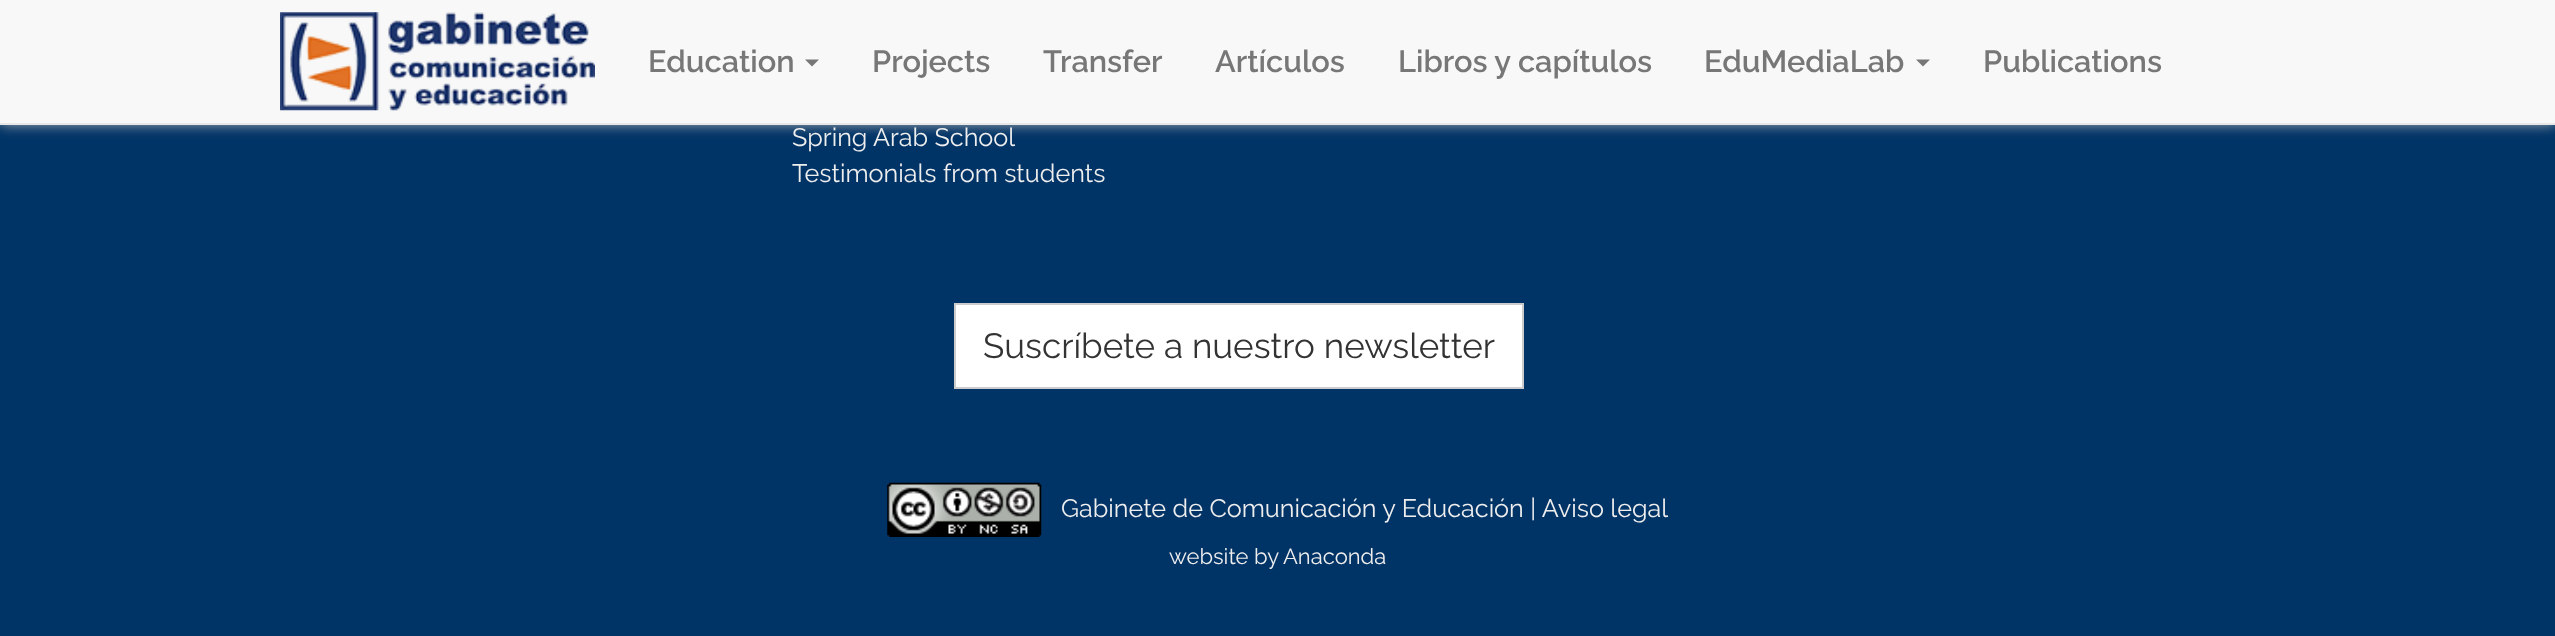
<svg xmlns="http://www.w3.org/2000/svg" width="2555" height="636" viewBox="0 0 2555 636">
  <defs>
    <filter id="blur1" x="-50%" y="-200%" width="200%" height="500%"><feGaussianBlur stdDeviation="7"/></filter>
  </defs>
  <rect width="100%" height="100%" fill="#003366"/>
  <rect x="0" y="0" width="2555" height="124" fill="#bbbbbb" filter="url(#blur1)"/>
  <rect x="0" y="0" width="2555" height="123" fill="#f8f8f8"/>
  <rect x="0" y="123" width="2555" height="2" fill="#e7e7e7"/>
  <image x="280" y="12" width="315" height="99" href="img1.png"/>
  <text x="648" y="72" font-family="Raleway" font-size="30.75" font-weight="600" fill="#777777">Education</text>
  <path d="M805 59.5H819L812 66.5Z" fill="#777777"/>
  <text x="872" y="72" font-family="Raleway" font-size="30.75" font-weight="600" fill="#777777">Projects</text>
  <text x="1043" y="72" font-family="Raleway" font-size="30.75" font-weight="600" fill="#777777">Transfer</text>
  <text x="1215" y="72" font-family="Raleway" font-size="30.75" font-weight="600" fill="#777777">Artículos</text>
  <text x="1398" y="72" font-family="Raleway" font-size="30.75" font-weight="600" fill="#777777">Libros y capítulos</text>
  <text x="1704" y="72" font-family="Raleway" font-size="30.75" font-weight="600" fill="#777777">EduMediaLab</text>
  <path d="M1916 59.5H1930L1923 66.5Z" fill="#777777"/>
  <text x="1983" y="72" font-family="Raleway" font-size="30.75" font-weight="600" fill="#777777">Publications</text>
  <text x="792" y="146" font-family="Raleway" font-size="25.2" fill="#eeeeee">Spring Arab School</text>
  <text x="792" y="182" font-family="Raleway" font-size="25.2" fill="#eeeeee">Testimonials from students</text>
  <rect x="955" y="304" width="568" height="84" fill="#ffffff" stroke="#cccccc" stroke-width="2"/>
  <text x="983" y="358" font-family="Raleway" font-size="35" fill="#333333">Suscríbete a nuestro newsletter</text>
  <image x="887" y="482" width="155" height="55" href="img2.png"/>
  <text x="1061" y="517" font-family="Raleway" font-size="25.2" fill="#eeeeee">Gabinete de Comunicación y Educación | Aviso legal</text>
  <text x="1169" y="564" font-family="Raleway" font-size="22" fill="#eeeeee">website by</text>
  <text x="1283" y="564" font-family="Raleway" font-size="22" fill="#eeeeee">Anaconda</text>
</svg>
